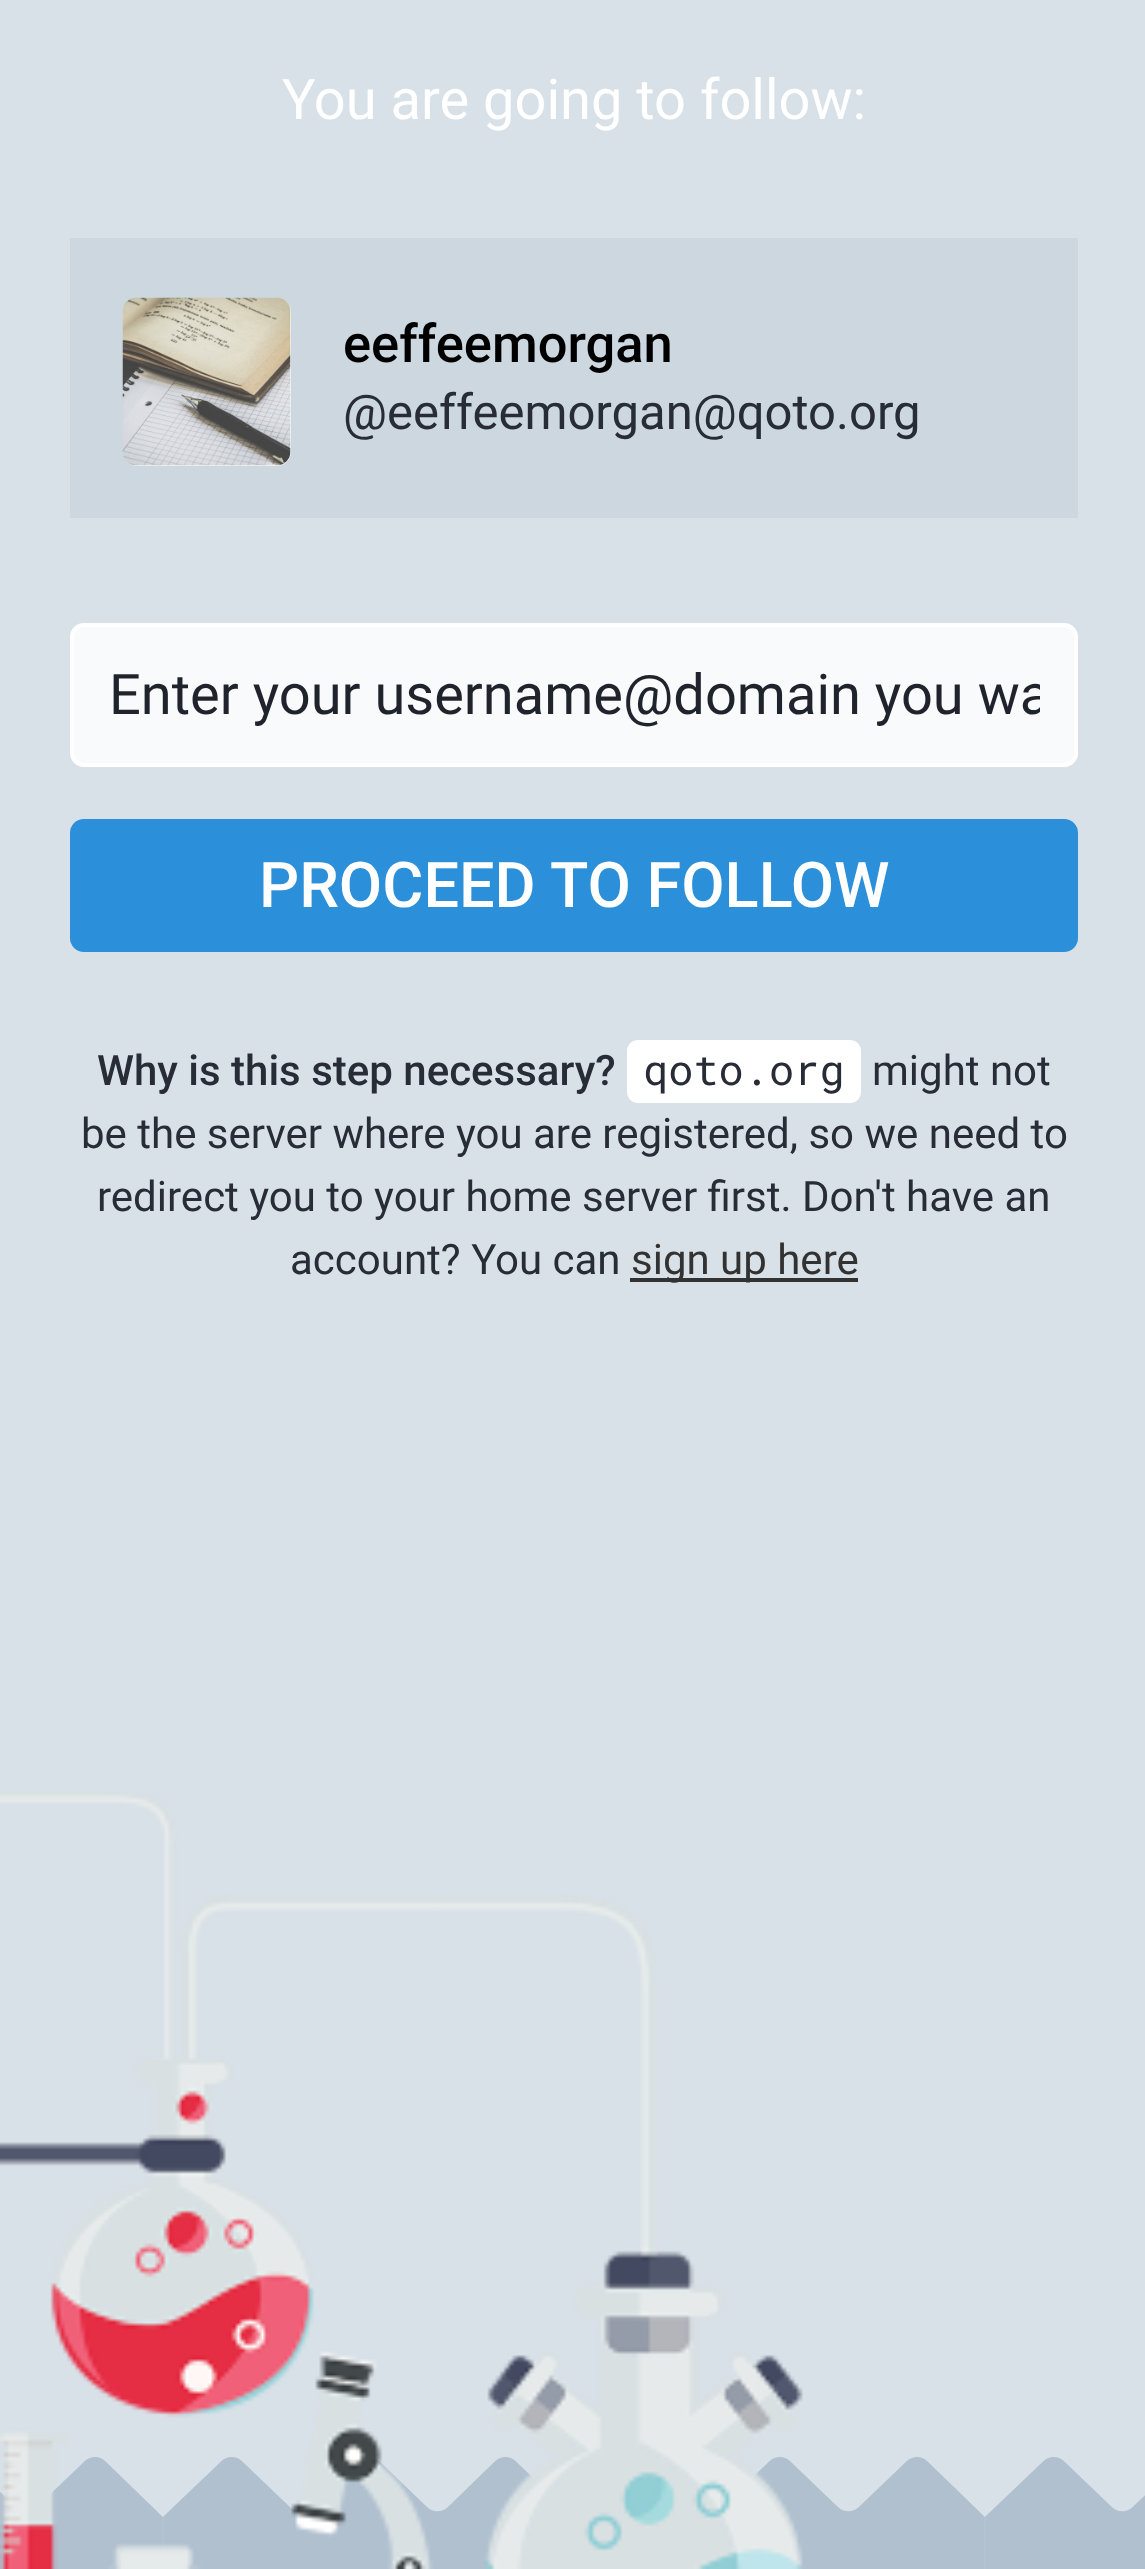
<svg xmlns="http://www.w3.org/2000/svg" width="1145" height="2569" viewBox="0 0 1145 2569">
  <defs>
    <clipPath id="clip1"><rect x="109" y="662" width="931" height="66"/></clipPath>
  </defs>
  <rect width="100%" height="100%" fill="#d9e1e8"/>
  <image x="0" y="2457" width="1145" height="112" href="img1.png"/>
  <text x="282" y="119" font-family="Roboto" font-size="56" fill="#ffffff">You are going to follow:</text>
  <rect x="70" y="238" width="1008" height="280" fill="#ccd7e0"/>
  <rect x="123" y="298" width="168" height="168" rx="14" fill="#f2f5f7"/>
  <image x="122" y="297" width="169" height="169" href="img2.png"/>
  <text x="343" y="362" font-family="Roboto" font-size="52.5" font-weight="500" fill="#000000">eeffeemorgan</text>
  <text x="343" y="429" font-family="Roboto" font-size="49" fill="#282c37">@eeffeemorgan@qoto.org</text>
  <rect x="72" y="625" width="1004" height="140" rx="12" fill="#f9fafb" stroke="#ffffff" stroke-width="4"/>
  <g clip-path="url(#clip1)">
    <text x="109" y="714" font-family="Roboto" font-size="56" fill="#1f232b">Enter your username@domain you wa</text>
  </g>
  <rect x="70" y="819" width="1008" height="133" rx="14" fill="#2b90d9"/>
  <text x="259" y="907" font-family="Roboto" font-size="63" font-weight="500" fill="#ffffff">PROCEED TO FOLLOW</text>
  <text x="97" y="1085" font-family="Roboto" font-size="42" font-weight="500" fill="#282c37">Why is this step necessary?</text>
  <rect x="627" y="1040" width="234" height="63" rx="11" fill="#ffffff"/>
  <text x="643" y="1085" font-family="Roboto Mono" font-size="42" fill="#282c37">qoto.org</text>
  <text x="872" y="1085" font-family="Roboto" font-size="42" fill="#282c37">might not</text>
  <text x="81" y="1148" font-family="Roboto" font-size="42" fill="#282c37">be the server where you are registered, so we need to</text>
  <text x="97" y="1211" font-family="Roboto" font-size="42" fill="#282c37">redirect you to your home server first. Don't have an</text>
  <text x="290" y="1274" font-family="Roboto" font-size="42" fill="#282c37">account? You can</text>
  <rect x="630" y="1278" width="228" height="4" fill="#323232"/>
  <text x="631" y="1274" font-family="Roboto" font-size="42" fill="#323232">sign up here</text>
  <image x="0" y="1791" width="803" height="778" href="img3.png"/>
</svg>
